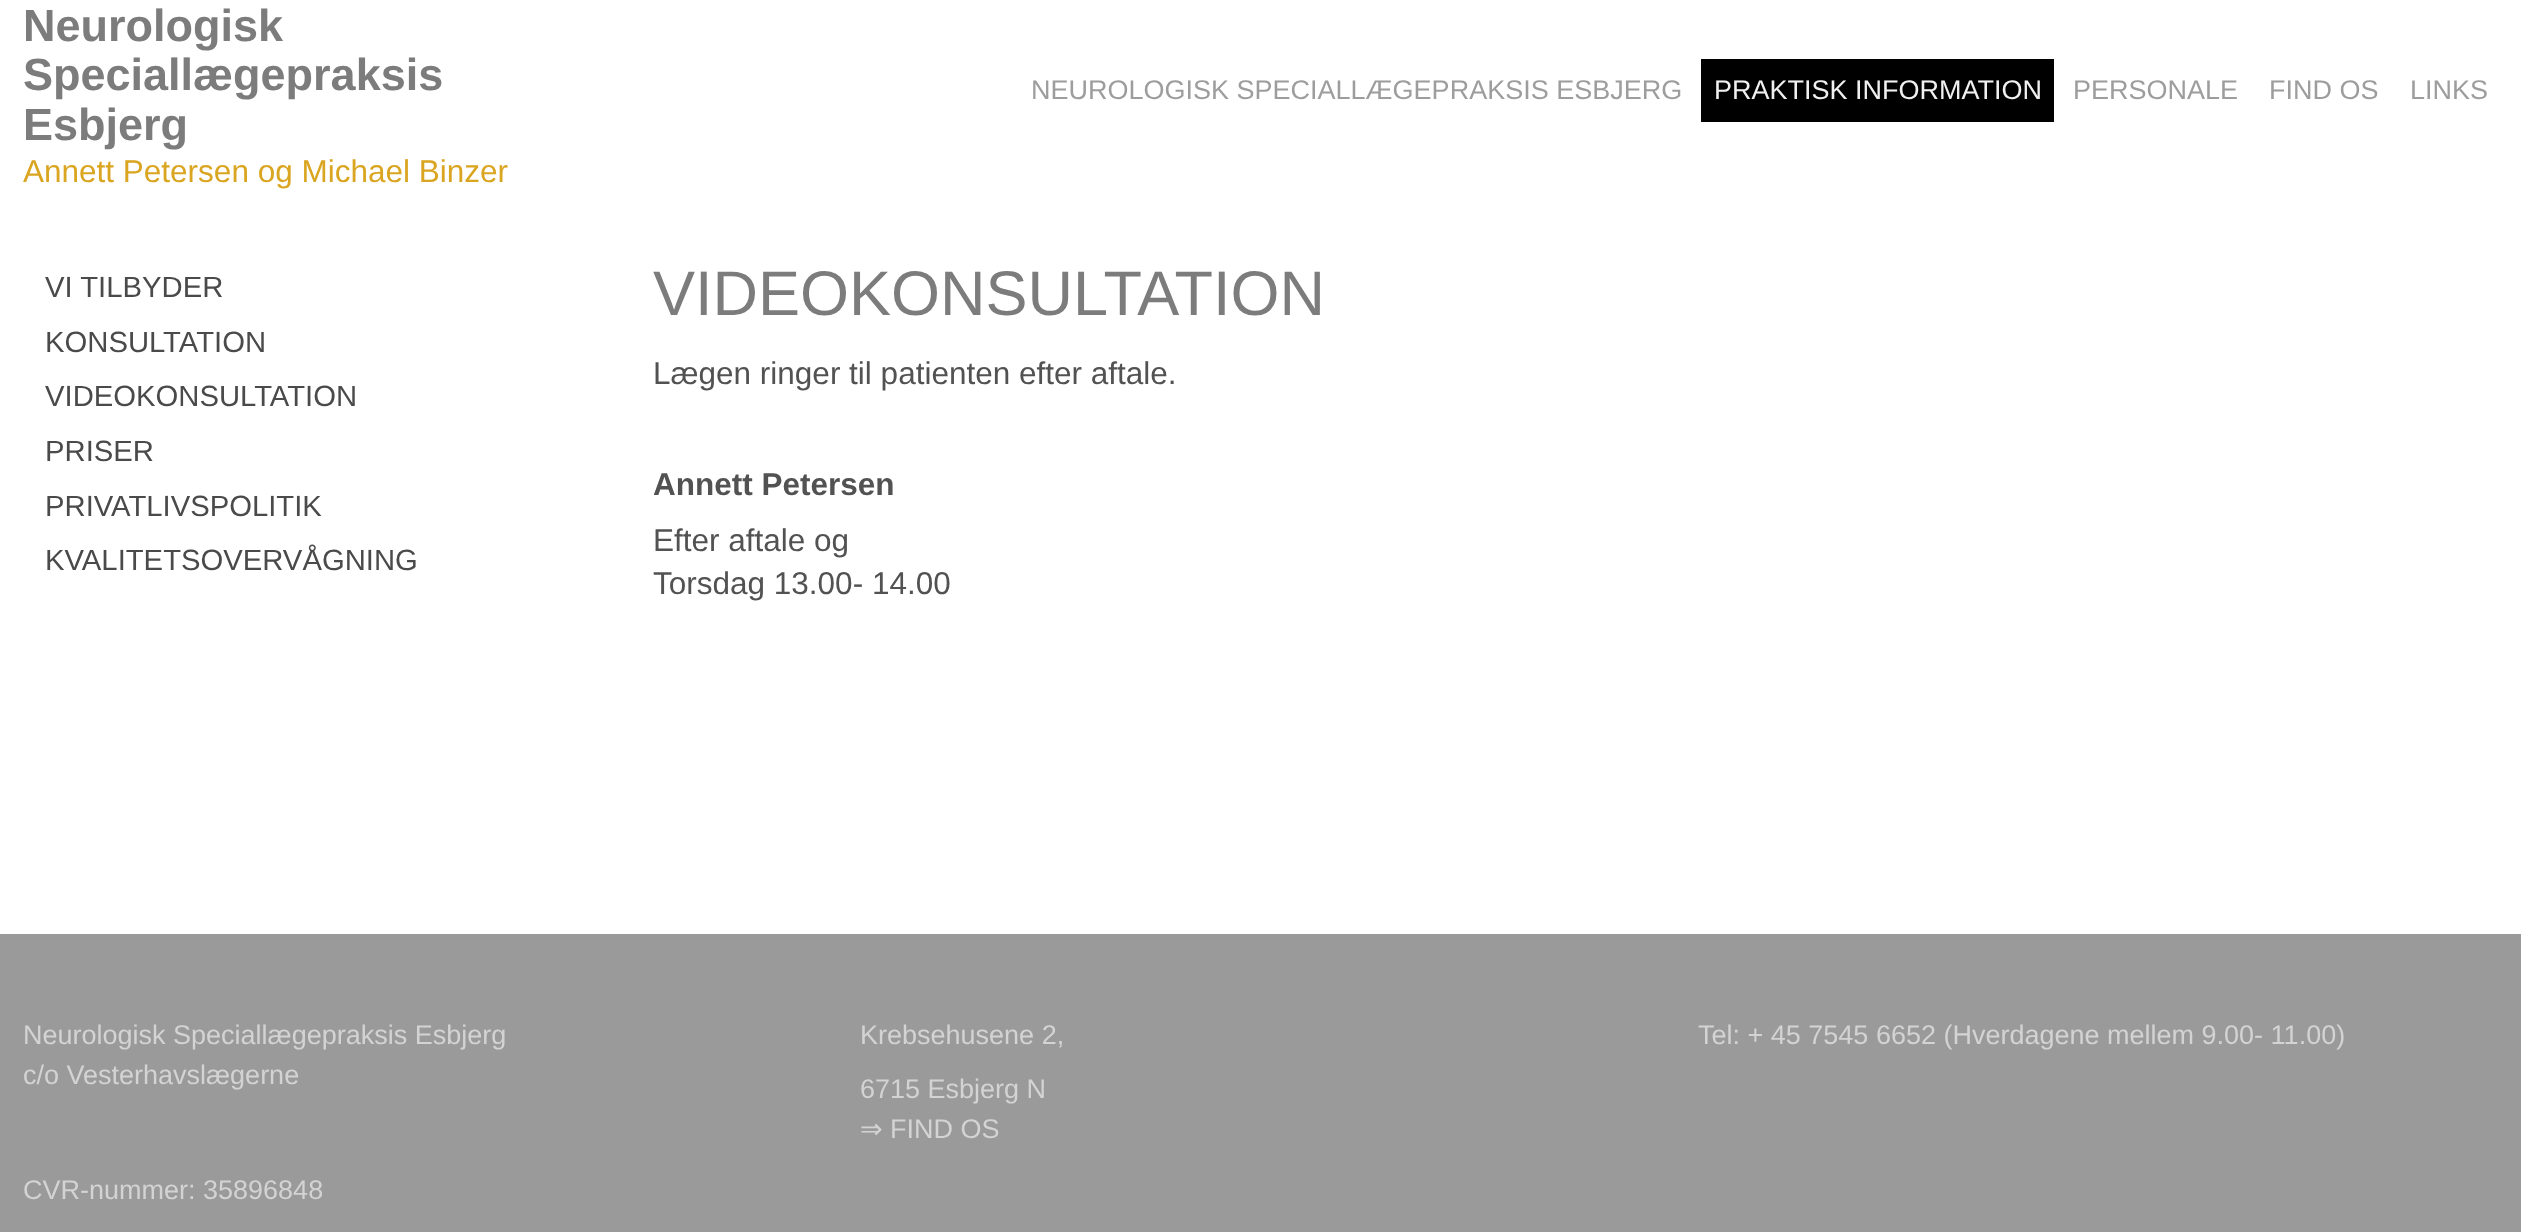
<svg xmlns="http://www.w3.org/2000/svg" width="2521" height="1232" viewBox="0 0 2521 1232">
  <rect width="100%" height="100%" fill="#ffffff"/>
  <text x="23" y="41" font-family="Liberation Sans" font-size="45" font-weight="bold" fill="#7c7c7c">Neurologisk</text>
  <text x="23" y="90" font-family="Liberation Sans" font-size="45" font-weight="bold" fill="#7c7c7c">Speciallægepraksis</text>
  <text x="23" y="140" font-family="Liberation Sans" font-size="45" font-weight="bold" fill="#7c7c7c">Esbjerg</text>
  <text x="23" y="182" font-family="Liberation Sans" font-size="31.5" fill="#daa520">Annett Petersen og Michael Binzer</text>
  <text x="1031" y="99" font-family="Liberation Sans" font-size="27" fill="#9d9d9d">NEUROLOGISK SPECIALLÆGEPRAKSIS ESBJERG</text>
  <rect x="1701" y="59" width="353" height="63" fill="#000000"/>
  <text x="1714" y="99" font-family="Liberation Sans" font-size="27" fill="#f0f0f0">PRAKTISK INFORMATION</text>
  <text x="2073" y="99" font-family="Liberation Sans" font-size="27" fill="#9d9d9d">PERSONALE</text>
  <text x="2269" y="99" font-family="Liberation Sans" font-size="27" fill="#9d9d9d">FIND OS</text>
  <text x="2410" y="99" font-family="Liberation Sans" font-size="27" fill="#9d9d9d">LINKS</text>
  <text x="45" y="297" font-family="Liberation Sans" font-size="29.25" fill="#4a4a4a">VI TILBYDER</text>
  <text x="45" y="352" font-family="Liberation Sans" font-size="29.25" fill="#4a4a4a">KONSULTATION</text>
  <text x="45" y="406" font-family="Liberation Sans" font-size="29.25" fill="#4a4a4a">VIDEOKONSULTATION</text>
  <text x="45" y="461" font-family="Liberation Sans" font-size="29.25" fill="#4a4a4a">PRISER</text>
  <text x="45" y="516" font-family="Liberation Sans" font-size="29.25" fill="#4a4a4a">PRIVATLIVSPOLITIK</text>
  <text x="45" y="570" font-family="Liberation Sans" font-size="29.25" fill="#4a4a4a">KVALITETSOVERVÅGNING</text>
  <text x="653" y="315" font-family="Liberation Sans" font-size="63" fill="#7c7c7c">VIDEOKONSULTATION</text>
  <text x="653" y="384" font-family="Liberation Sans" font-size="31.5" fill="#525252">Lægen ringer til patienten efter aftale.</text>
  <text x="653" y="495" font-family="Liberation Sans" font-size="31.5" font-weight="bold" fill="#525252">Annett Petersen</text>
  <text x="653" y="551" font-family="Liberation Sans" font-size="31.5" fill="#525252">Efter aftale og</text>
  <text x="653" y="594" font-family="Liberation Sans" font-size="31.5" fill="#525252">Torsdag 13.00- 14.00</text>
  <rect x="0" y="934" width="2521" height="298" fill="#9a9a9a"/>
  <text x="23" y="1044" font-family="Liberation Sans" font-size="27" fill="#d3d3d3">Neurologisk Speciallægepraksis Esbjerg</text>
  <text x="23" y="1084" font-family="Liberation Sans" font-size="27" fill="#d3d3d3">c/o Vesterhavslægerne</text>
  <text x="860" y="1044" font-family="Liberation Sans" font-size="27" fill="#d3d3d3">Krebsehusene 2,</text>
  <text x="860" y="1098" font-family="Liberation Sans" font-size="27" fill="#d3d3d3">6715 Esbjerg N</text>
  <text x="860" y="1138" font-family="DejaVu Sans" font-size="27" fill="#d3d3d3">⇒</text>
  <text x="890" y="1138" font-family="Liberation Sans" font-size="27" fill="#d3d3d3">FIND OS</text>
  <text x="1698" y="1044" font-family="Liberation Sans" font-size="27" fill="#d3d3d3">Tel: + 45 7545 6652 (Hverdagene mellem 9.00- 11.00)</text>
  <text x="23" y="1199" font-family="Liberation Sans" font-size="27" fill="#d3d3d3">CVR-nummer: 35896848</text>
</svg>
